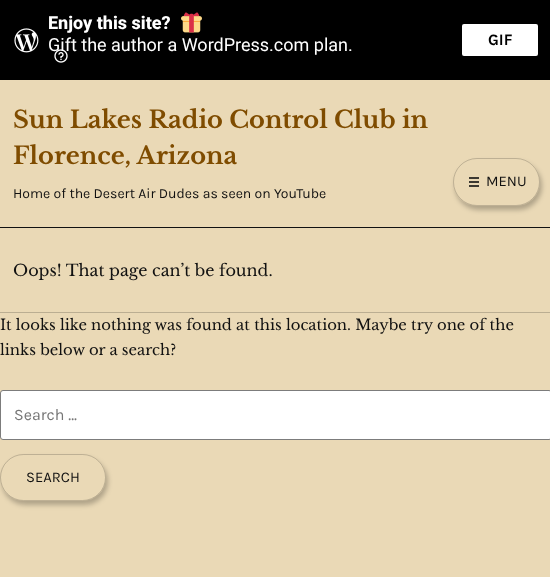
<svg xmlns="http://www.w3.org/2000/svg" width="550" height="577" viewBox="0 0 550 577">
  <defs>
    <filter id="blur1" x="-50%" y="-200%" width="200%" height="500%"><feGaussianBlur stdDeviation="2.5"/></filter>
  </defs>
  <rect width="100%" height="100%" fill="#ead9b6"/>
  <rect x="0" y="0" width="550" height="80" fill="#000000"/>
  <image x="14" y="28" width="25" height="25" href="img1.png"/>
  <text x="48" y="29" font-family="Roboto" font-size="18" font-weight="800" fill="#ffffff">Enjoy this site?</text>
  <image x="181" y="12" width="21" height="21" href="img2.png"/>
  <text x="48" y="51" font-family="Roboto" font-size="18" fill="#ffffff">Gift the author a WordPress.com plan.</text>
  <image x="54" y="49" width="14" height="14" href="img3.png"/>
  <rect x="462" y="24" width="76" height="32" rx="2" fill="#ffffff"/>
  <text x="488" y="45" font-family="Karla" font-size="16" font-weight="bold" fill="#000000">GIF</text>
  <text x="13" y="128" font-family="Libre Baskerville" font-size="24" font-weight="bold" fill="#7f4c00">Sun Lakes Radio Control Club in</text>
  <text x="13" y="164" font-family="Libre Baskerville" font-size="24" font-weight="bold" fill="#7f4c00">Florence, Arizona</text>
  <text x="13" y="198" font-family="Karla" font-size="14" fill="#111111">Home of the Desert Air Dudes as seen on YouTube</text>
  <rect x="455" y="162" width="87" height="48" rx="24" fill="#000000" fill-opacity="0.25" filter="url(#blur1)"/>
  <rect x="453" y="158" width="87" height="48" rx="24" fill="#ead9b6"/>
  <rect x="453.5" y="158.5" width="86" height="47" rx="23.5" fill="none" stroke="#111111" stroke-opacity="0.2"/>
  <rect x="469" y="177" width="10" height="2" fill="#3c3932"/>
  <rect x="469" y="181" width="10" height="2" fill="#3c3932"/>
  <rect x="469" y="185" width="10" height="2" fill="#3c3932"/>
  <text x="486" y="186" font-family="Karla" font-size="14.8" fill="#111111">MENU</text>
  <rect x="0" y="227" width="550" height="1" fill="#111111"/>
  <rect x="0" y="312" width="550" height="1" fill="#bbae92"/>
  <text x="13" y="276" font-family="Libre Baskerville" font-size="16" fill="#111111">Oops! That page can’t be found.</text>
  <text x="0" y="330" font-family="Libre Baskerville" font-size="14.8" fill="#111111">It looks like nothing was found at this location. Maybe try one of the</text>
  <text x="0" y="355" font-family="Libre Baskerville" font-size="14.8" fill="#111111">links below or a search?</text>
  <rect x="0.5" y="390.5" width="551" height="49" rx="2.5" fill="#ffffff" stroke="#7c7c7c"/>
  <text x="14" y="420" font-family="Karla" font-size="16" fill="#757575">Search …</text>
  <rect x="2" y="458" width="106" height="47" rx="23.5" fill="#000000" fill-opacity="0.25" filter="url(#blur1)"/>
  <rect x="0" y="454" width="106" height="47" rx="23.5" fill="#ead9b6"/>
  <rect x="0.5" y="454.5" width="105" height="46" rx="23" fill="none" stroke="#111111" stroke-opacity="0.2"/>
  <text x="26" y="482" font-family="Karla" font-size="14.8" fill="#111111">SEARCH</text>
</svg>
